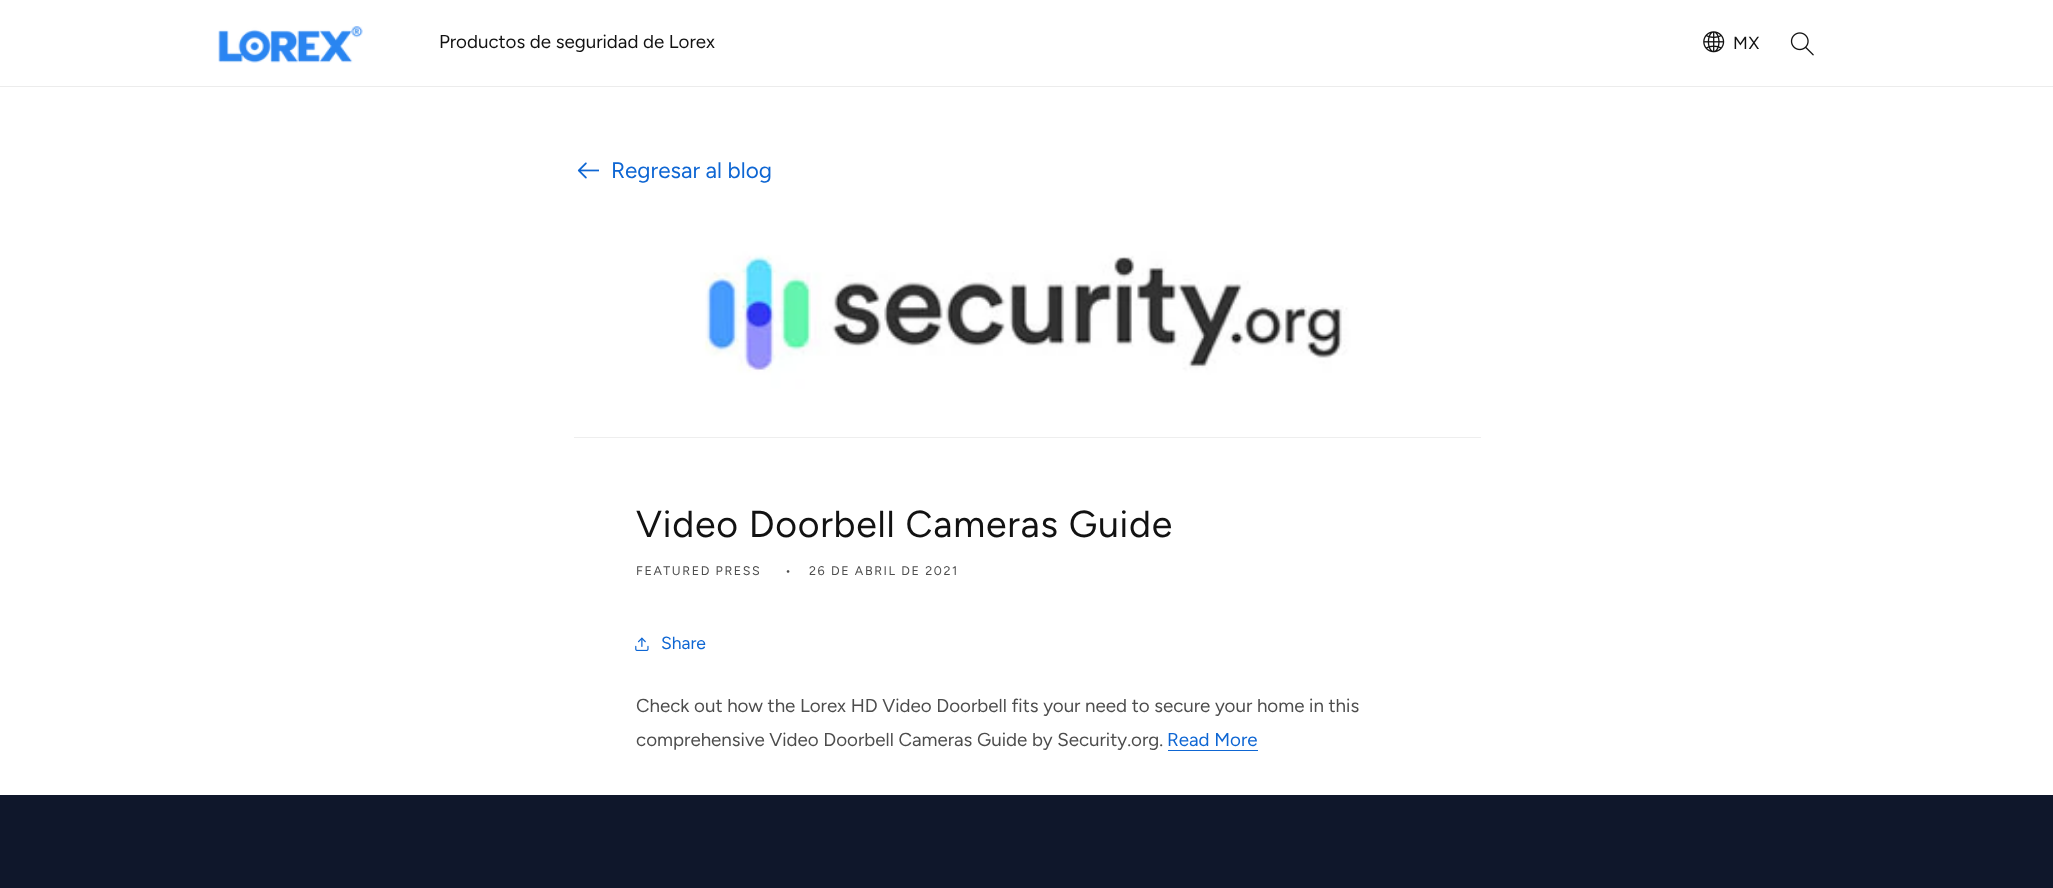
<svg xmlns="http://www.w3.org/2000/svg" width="2053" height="888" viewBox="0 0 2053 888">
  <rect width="100%" height="100%" fill="#ffffff"/>
  <rect x="0" y="86" width="2053" height="1" fill="#ececec"/>
  <image x="218" y="26" width="145" height="37" href="img1.png"/>
  <text x="439" y="48" font-family="Figtree" font-size="18.75" fill="#121212">Productos de seguridad de Lorex</text>
  <image x="1703" y="31" width="22" height="22" href="img2.png"/>
  <text x="1733" y="49" font-family="Figtree" font-size="17.5" letter-spacing="0.75" fill="#121212">MX</text>
  <image x="1790" y="32" width="24" height="24" href="img3.png"/>
  <image x="577" y="162" width="22" height="17" href="img4.png"/>
  <text x="611" y="178" font-family="Figtree" font-size="22.5" fill="#0e66d3">Regresar al blog</text>
  <rect x="574" y="437" width="907" height="1" fill="#e8e8e8"/>
  <image x="574" y="190" width="907" height="248" href="img5.png"/>
  <text x="636" y="537" font-family="Figtree" font-size="37.5" letter-spacing="0.75" fill="#121212">Video Doorbell Cameras Guide</text>
  <text x="636" y="575" font-family="Figtree" font-size="12.5" letter-spacing="1.6" fill="#4d4d4d">FEATURED PRESS</text>
  <text x="785" y="575" font-family="Figtree" font-size="12.5" letter-spacing="1.6" fill="#4d4d4d">•</text>
  <text x="809" y="575" font-family="Figtree" font-size="12.5" letter-spacing="1.6" fill="#4d4d4d">26 DE ABRIL DE 2021</text>
  <image x="635" y="637" width="14" height="14" href="img6.png"/>
  <text x="661" y="649" font-family="Figtree" font-size="17.5" fill="#0e66d3">Share</text>
  <text x="636" y="712" font-family="Figtree" font-size="18.75" fill="#4d4d4d">Check out how the Lorex HD Video Doorbell fits your need to secure your home in this</text>
  <text x="636" y="746" font-family="Figtree" font-size="18.75" fill="#4d4d4d">comprehensive Video Doorbell Cameras Guide by Security.org.</text>
  <text x="1167" y="746" font-family="Figtree" font-size="18.75" fill="#0e66d3">Read More</text>
  <rect x="1168" y="750" width="90" height="1" fill="#0e66d3"/>
  <rect x="0" y="795" width="2053" height="93" fill="#0f172b"/>
</svg>
